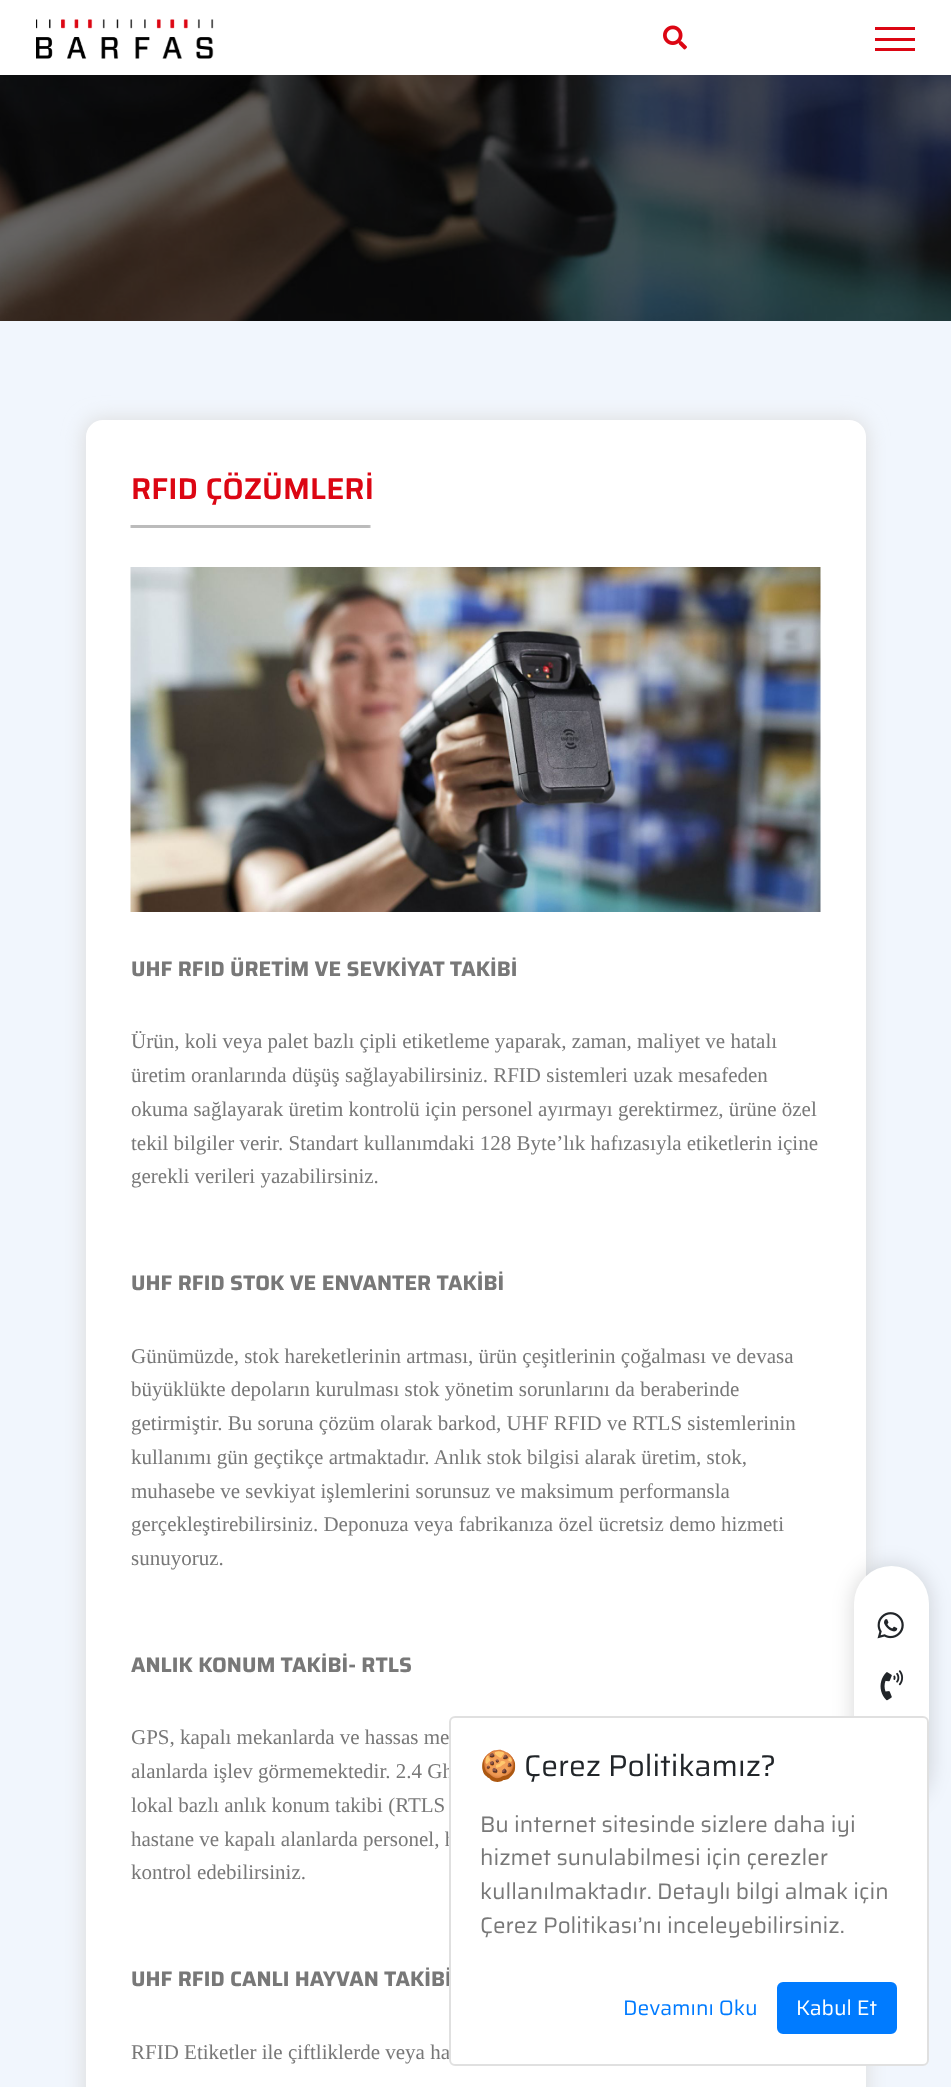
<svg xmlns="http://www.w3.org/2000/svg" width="951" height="2087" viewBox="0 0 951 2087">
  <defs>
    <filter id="blur1" x="-50%" y="-200%" width="200%" height="500%"><feGaussianBlur stdDeviation="10"/></filter>
    <filter id="blur2" x="-50%" y="-200%" width="200%" height="500%"><feGaussianBlur stdDeviation="10.5"/></filter>
  </defs>
  <rect width="100%" height="100%" fill="#ffffff"/>
  <image x="36" y="19" width="178" height="40" href="img1.png"/>
  <image x="663" y="25" width="24" height="25" href="img2.png"/>
  <rect x="875" y="27" width="40" height="3" fill="#dc0613"/>
  <rect x="875" y="38" width="40" height="3" fill="#dc0613"/>
  <rect x="875" y="48" width="40" height="3" fill="#dc0613"/>
  <image x="0" y="75" width="951" height="246" href="img3.png"/>
  <rect x="0" y="321" width="951" height="1766" fill="#f1f6fd"/>
  <rect x="84" y="419" width="783" height="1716" rx="18" fill="#dddddd" filter="url(#blur1)"/>
  <rect x="86" y="420" width="780" height="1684" rx="17" fill="#ffffff"/>
  <image x="130" y="525" width="241" height="3" href="img4.png"/>
  <text x="131" y="499" font-family="Saira" font-size="30" font-weight="600" fill="#dc0613">RFID ÇÖZÜMLERİ</text>
  <image x="130" y="567" width="691" height="345" href="img5.png"/>
  <text x="131" y="976" font-family="Saira" font-size="21" font-weight="bold" fill="#787878">UHF RFID ÜRETİM VE SEVKİYAT TAKİBİ</text>
  <text x="131" y="1048" font-family="Liberation Serif" font-size="21" fill="#787878">Ürün, koli veya palet bazlı çipli etiketleme yaparak, zaman, maliyet ve hatalı</text>
  <text x="131" y="1082" font-family="Liberation Serif" font-size="21" fill="#787878">üretim oranlarında düşüş sağlayabilirsiniz. RFID sistemleri uzak mesafeden</text>
  <text x="131" y="1116" font-family="Liberation Serif" font-size="21" fill="#787878">okuma sağlayarak üretim kontrolü için personel ayırmayı gerektirmez, ürüne özel</text>
  <text x="131" y="1150" font-family="Liberation Serif" font-size="21" fill="#787878">tekil bilgiler verir. Standart kullanımdaki 128 Byte’lık hafızasıyla etiketlerin içine</text>
  <text x="131" y="1183" font-family="Liberation Serif" font-size="21" fill="#787878">gerekli verileri yazabilirsiniz.</text>
  <text x="131" y="1290" font-family="Saira" font-size="21" font-weight="bold" fill="#787878">UHF RFID STOK VE ENVANTER TAKİBİ</text>
  <text x="131" y="1363" font-family="Liberation Serif" font-size="21" fill="#787878">Günümüzde, stok hareketlerinin artması, ürün çeşitlerinin çoğalması ve devasa</text>
  <text x="131" y="1396" font-family="Liberation Serif" font-size="21" fill="#787878">büyüklükte depoların kurulması stok yönetim sorunlarını da beraberinde</text>
  <text x="131" y="1430" font-family="Liberation Serif" font-size="21" fill="#787878">getirmiştir. Bu soruna çözüm olarak barkod, UHF RFID ve RTLS sistemlerinin</text>
  <text x="131" y="1464" font-family="Liberation Serif" font-size="21" fill="#787878">kullanımı gün geçtikçe artmaktadır. Anlık stok bilgisi alarak üretim, stok,</text>
  <text x="131" y="1498" font-family="Liberation Serif" font-size="21" fill="#787878">muhasebe ve sevkiyat işlemlerini sorunsuz ve maksimum performansla</text>
  <text x="131" y="1531" font-family="Liberation Serif" font-size="21" fill="#787878">gerçekleştirebilirsiniz. Deponuza veya fabrikanıza özel ücretsiz demo hizmeti</text>
  <text x="131" y="1565" font-family="Liberation Serif" font-size="21" fill="#787878">sunuyoruz.</text>
  <text x="131" y="1672" font-family="Saira" font-size="21" font-weight="bold" fill="#787878">ANLIK KONUM TAKİBİ- RTLS</text>
  <text x="131" y="1744" font-family="Liberation Serif" font-size="21" fill="#787878">GPS, kapalı mekanlarda ve hassas me</text>
  <text x="131" y="1778" font-family="Liberation Serif" font-size="21" fill="#787878">alanlarda işlev görmemektedir. 2.4 Gh</text>
  <text x="131" y="1812" font-family="Liberation Serif" font-size="21" fill="#787878">lokal bazlı anlık konum takibi (RTLS</text>
  <text x="131" y="1846" font-family="Liberation Serif" font-size="21" fill="#787878">hastane ve kapalı alanlarda personel, h</text>
  <text x="131" y="1879" font-family="Liberation Serif" font-size="21" fill="#787878">kontrol edebilirsiniz.</text>
  <text x="131" y="1986" font-family="Saira" font-size="21" font-weight="bold" fill="#787878">UHF RFID CANLI HAYVAN TAKİBİ</text>
  <text x="131" y="2059" font-family="Liberation Serif" font-size="21" fill="#787878">RFID Etiketler ile çiftliklerde veya ha</text>
  <rect x="854" y="1566" width="75" height="240" rx="37.5" fill="#000000" fill-opacity="0.16" filter="url(#blur2)"/>
  <rect x="854" y="1566" width="75" height="240" rx="37.5" fill="#ffffff"/>
  <image x="877" y="1612" width="27" height="27" href="img6.png"/>
  <image x="880" y="1670" width="24" height="31" href="img7.png"/>
  <rect x="449" y="1716" width="480" height="350" rx="6" fill="#ffffff"/>
  <rect x="450" y="1717" width="478" height="348" rx="5" fill="none" stroke="#000000" stroke-opacity="0.12" stroke-width="2"/>
  <text x="480" y="1776" font-family="Noto Color Emoji" font-size="30" fill="#212529">🍪</text>
  <text x="524" y="1776" font-family="Saira" font-size="30" fill="#212529">Çerez Politikamız?</text>
  <text x="480" y="1832" font-family="Saira" font-size="22.5" fill="#787878">Bu internet sitesinde sizlere daha iyi</text>
  <text x="480" y="1865" font-family="Saira" font-size="22.5" fill="#787878">hizmet sunulabilmesi için çerezler</text>
  <text x="480" y="1899" font-family="Saira" font-size="22.5" fill="#787878">kullanılmaktadır. Detaylı bilgi almak için</text>
  <text x="480" y="1933" font-family="Saira" font-size="22.5" fill="#787878">Çerez Politikası’nı inceleyebilirsiniz.</text>
  <text x="623" y="2015" font-family="Saira" font-size="21" fill="#007bff">Devamını Oku</text>
  <rect x="778" y="1983" width="118" height="50" rx="5" fill="#007bff" stroke="#007bff" stroke-width="2"/>
  <text x="796" y="2015" font-family="Saira" font-size="21" fill="#ffffff">Kabul Et</text>
</svg>
